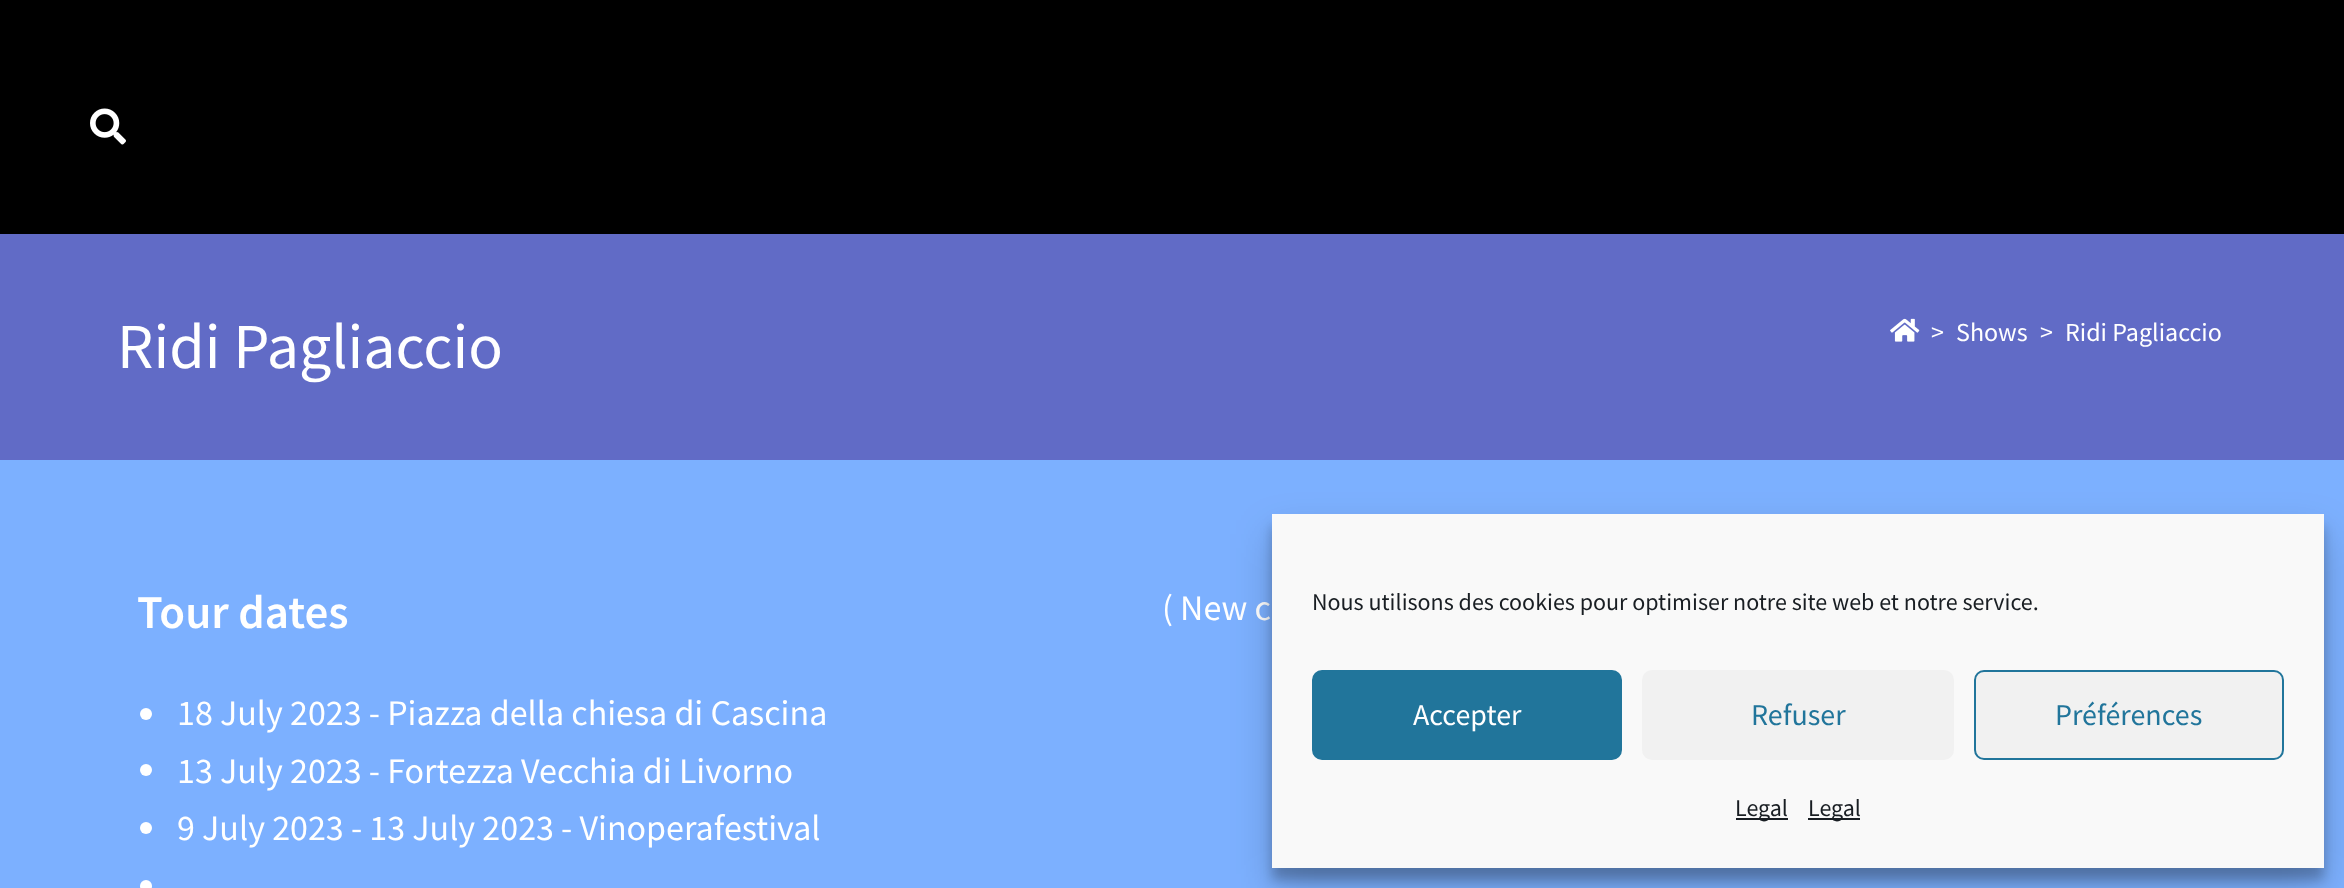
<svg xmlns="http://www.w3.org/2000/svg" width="2344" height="888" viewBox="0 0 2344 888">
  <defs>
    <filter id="blur1" x="-50%" y="-200%" width="200%" height="500%"><feGaussianBlur stdDeviation="6"/></filter>
    <filter id="blur2" x="-50%" y="-200%" width="200%" height="500%"><feGaussianBlur stdDeviation="20"/></filter>
  </defs>
  <rect width="100%" height="100%" fill="#000000"/>
  <image x="90" y="108" width="36" height="37" href="img1.png"/>
  <rect x="0" y="460" width="2344" height="428" fill="#7cb0ff"/>
  <rect x="0" y="234" width="2344" height="226" fill="#616bc6"/>
  <text x="117" y="368" font-family="Source Sans Pro" font-size="64" fill="#ffffff">Ridi Pagliaccio</text>
  <image x="1890" y="318" width="30" height="24" href="img2.png"/>
  <text x="1931" y="341" font-family="Source Sans Pro" font-size="26" fill="#ffffff">&gt;</text>
  <text x="1956" y="341" font-family="Source Sans Pro" font-size="26" fill="#ffffff">Shows</text>
  <text x="2040" y="341" font-family="Source Sans Pro" font-size="26" fill="#ffffff">&gt;</text>
  <text x="2065" y="341" font-family="Source Sans Pro" font-size="26" fill="#ffffff">Ridi Pagliaccio</text>
  <text x="137" y="628" font-family="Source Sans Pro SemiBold" font-size="47" font-weight="600" fill="#ffffff">Tour dates</text>
  <circle cx="146" cy="714" r="6" fill="#ffffff"/>
  <text x="177" y="725" font-family="Source Sans Pro" font-size="36" fill="#ffffff">18 July 2023 - Piazza della chiesa di Cascina</text>
  <circle cx="146" cy="770" r="6" fill="#ffffff"/>
  <text x="177" y="783" font-family="Source Sans Pro" font-size="36" fill="#ffffff">13 July 2023 - Fortezza Vecchia di Livorno</text>
  <circle cx="146" cy="828" r="6" fill="#ffffff"/>
  <text x="177" y="840" font-family="Source Sans Pro" font-size="36" fill="#ffffff">9 July 2023 - 13 July 2023 - Vinoperafestival</text>
  <circle cx="146" cy="886" r="6" fill="#ffffff"/>
  <text x="1162" y="620" font-family="Source Sans Pro" font-size="36" fill="#ffffff">( New c</text>
  <rect x="1272" y="526" width="1052" height="354" fill="#000000" fill-opacity="0.23" filter="url(#blur1)"/>
  <rect x="1272" y="534" width="1052" height="354" fill="#000000" fill-opacity="0.19" filter="url(#blur2)"/>
  <rect x="1272" y="514" width="1052" height="354" fill="#f9f9f9"/>
  <text x="1312" y="610" font-family="Source Sans Pro" font-size="24" fill="#191e23">Nous utilisons des cookies pour optimiser notre site web et notre service.</text>
  <rect x="1313" y="671" width="308" height="88" rx="9" fill="#21759b" stroke="#21759b" stroke-width="2"/>
  <text x="1413" y="725" font-family="Source Sans Pro" font-size="30" fill="#ffffff">Accepter</text>
  <rect x="1642" y="670" width="312" height="90" rx="10" fill="#f1f1f1"/>
  <text x="1751" y="725" font-family="Source Sans Pro" font-size="30" fill="#21759b">Refuser</text>
  <rect x="1975" y="671" width="308" height="88" rx="9" fill="#f1f1f1" stroke="#21759b" stroke-width="2"/>
  <text x="2055" y="725" font-family="Source Sans Pro" font-size="30" fill="#21759b">Préférences</text>
  <rect x="1736" y="818" width="52" height="2" fill="#191e23"/>
  <text x="1735" y="816" font-family="Source Sans Pro" font-size="24" fill="#191e23">Legal</text>
  <rect x="1808" y="818" width="52" height="2" fill="#191e23"/>
  <text x="1808" y="816" font-family="Source Sans Pro" font-size="24" fill="#191e23">Legal</text>
</svg>
